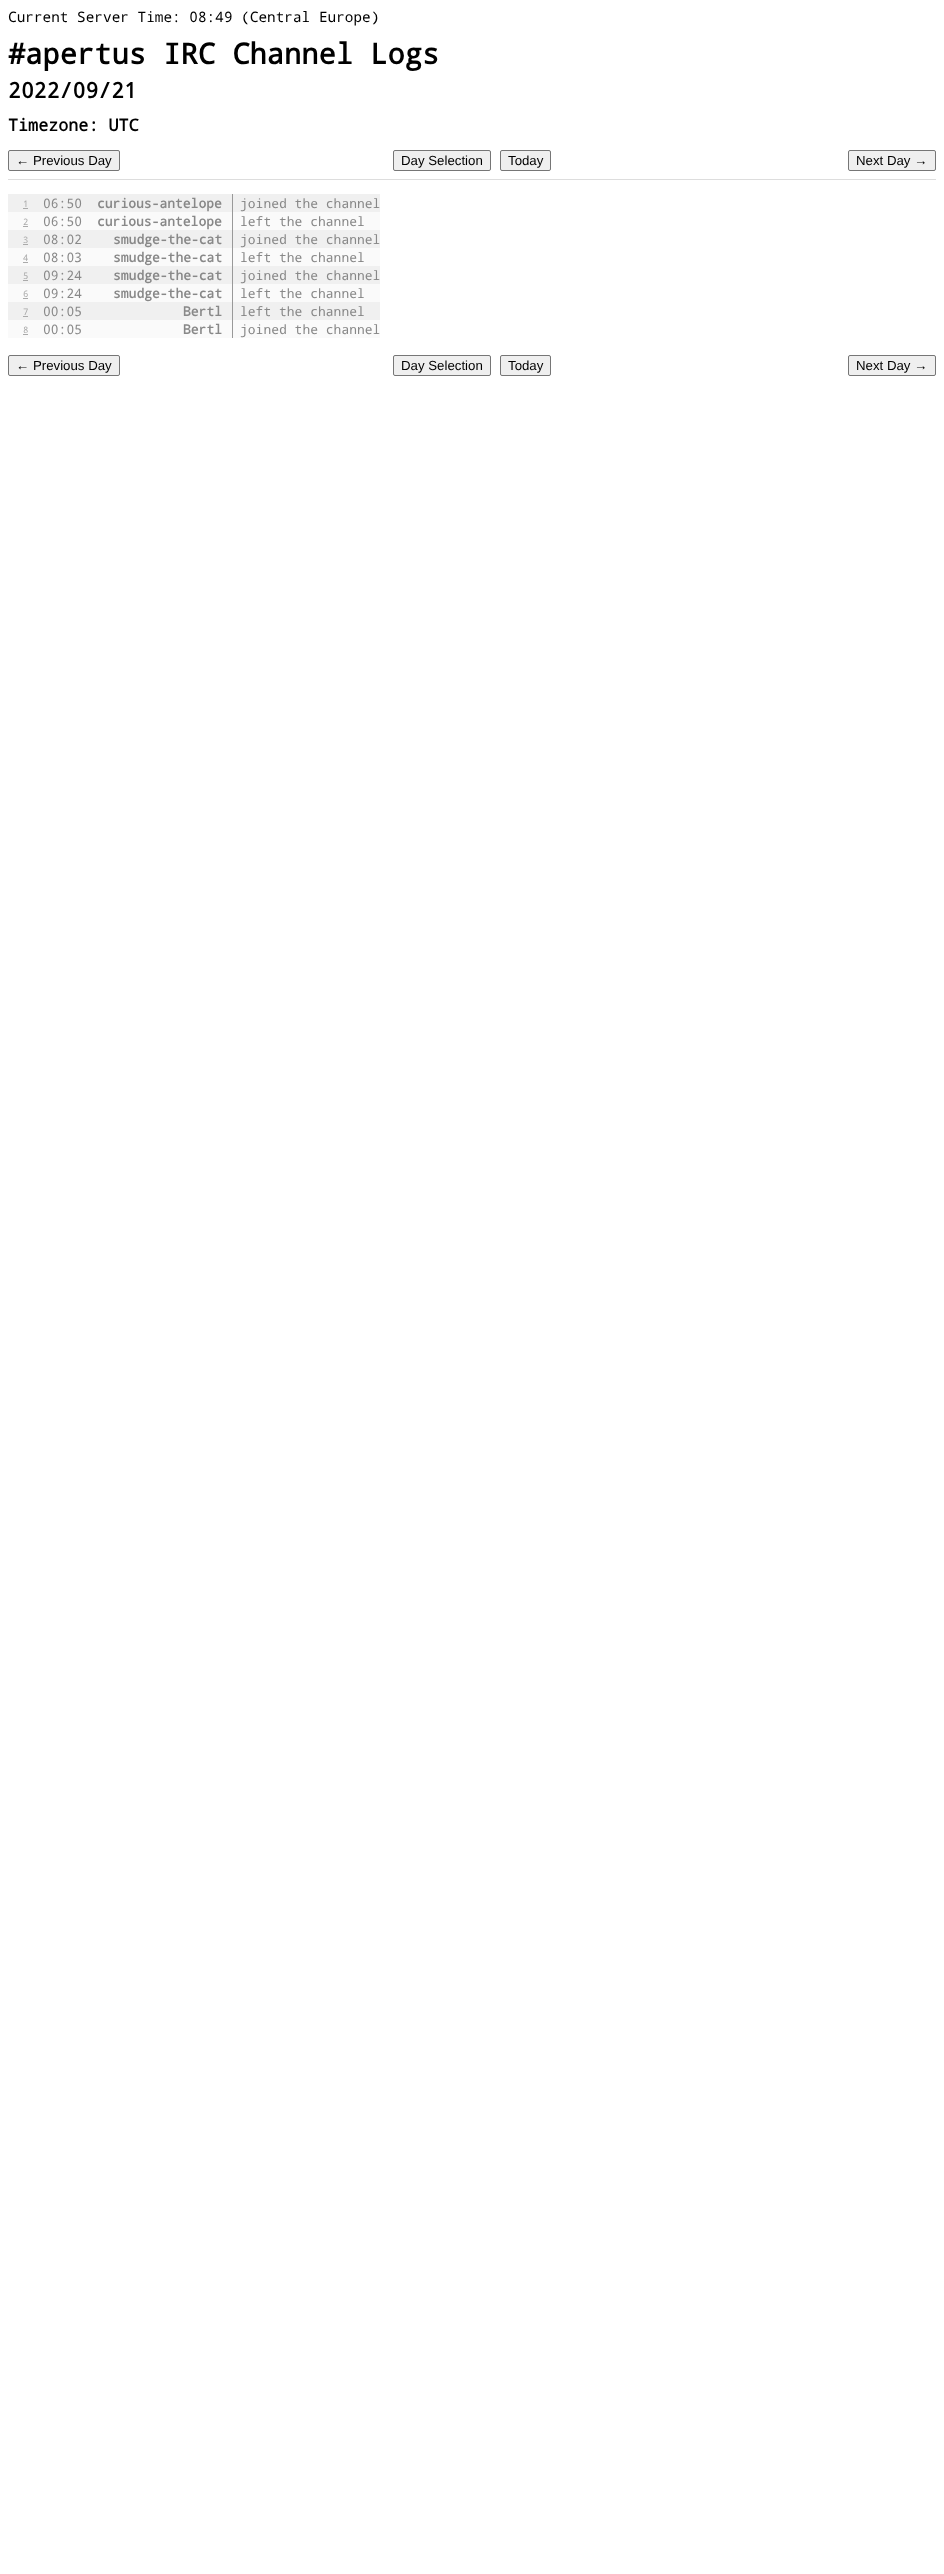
<svg xmlns="http://www.w3.org/2000/svg" width="944" height="2574" viewBox="0 0 944 2574">
  <rect width="100%" height="100%" fill="#ffffff"/>
  <text x="8" y="22" font-family="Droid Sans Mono" font-size="14.4" fill="#000000">Current Server Time: 08:49 (Central Europe)</text>
  <text x="8" y="64" font-family="Droid Sans Mono" font-size="28.75" font-weight="bold" fill="#000000">#apertus IRC Channel Logs</text>
  <text x="8" y="98" font-family="Droid Sans Mono" font-size="21.5" font-weight="bold" fill="#000000">2022/09/21</text>
  <text x="8" y="131" font-family="Droid Sans Mono" font-size="16.75" font-weight="bold" fill="#000000">Timezone: UTC</text>
  <rect x="8.5" y="150.5" width="111" height="20" rx="1.5" fill="#efefef" stroke="#767676"/>
  <text x="16" y="165" font-family="Liberation Sans" font-size="13.25" fill="#000000">← Previous Day</text>
  <rect x="393.5" y="150.5" width="97" height="20" rx="1.5" fill="#efefef" stroke="#767676"/>
  <text x="401" y="165" font-family="Liberation Sans" font-size="13.25" fill="#000000">Day Selection</text>
  <rect x="500.5" y="150.5" width="50" height="20" rx="1.5" fill="#efefef" stroke="#767676"/>
  <text x="508" y="165" font-family="Liberation Sans" font-size="13.25" fill="#000000">Today</text>
  <rect x="848.5" y="150.5" width="87" height="20" rx="1.5" fill="#efefef" stroke="#767676"/>
  <text x="856" y="165" font-family="Liberation Sans" font-size="13.25" fill="#000000">Next Day →</text>
  <rect x="8" y="179" width="928" height="1" fill="#dddddd"/>
  <rect x="8" y="194" width="372" height="18" fill="#f0f0f0"/>
  <text x="23" y="207" font-family="Droid Sans Mono" font-size="9" fill="#aaaaaa">1</text>
  <rect x="23" y="208" width="5" height="1" fill="#aaaaaa"/>
  <text x="43" y="208" font-family="Droid Sans Mono" font-size="13" fill="#888888">06:50</text>
  <text x="97" y="208" font-family="Droid Sans Mono" font-size="13" font-weight="bold" fill="#888888">curious-antelope</text>
  <rect x="232" y="194" width="1" height="18" fill="#999999"/>
  <text x="240" y="208" font-family="Droid Sans Mono" font-size="13" fill="#888888">joined the channel</text>
  <rect x="8" y="212" width="372" height="18" fill="#fafafa"/>
  <text x="23" y="225" font-family="Droid Sans Mono" font-size="9" fill="#aaaaaa">2</text>
  <rect x="23" y="226" width="5" height="1" fill="#aaaaaa"/>
  <text x="43" y="226" font-family="Droid Sans Mono" font-size="13" fill="#888888">06:50</text>
  <text x="97" y="226" font-family="Droid Sans Mono" font-size="13" font-weight="bold" fill="#888888">curious-antelope</text>
  <rect x="232" y="212" width="1" height="18" fill="#999999"/>
  <text x="240" y="226" font-family="Droid Sans Mono" font-size="13" fill="#888888">left the channel</text>
  <rect x="8" y="230" width="372" height="18" fill="#f0f0f0"/>
  <text x="23" y="243" font-family="Droid Sans Mono" font-size="9" fill="#aaaaaa">3</text>
  <rect x="23" y="244" width="5" height="1" fill="#aaaaaa"/>
  <text x="43" y="244" font-family="Droid Sans Mono" font-size="13" fill="#888888">08:02</text>
  <text x="113" y="244" font-family="Droid Sans Mono" font-size="13" font-weight="bold" fill="#888888">smudge-the-cat</text>
  <rect x="232" y="230" width="1" height="18" fill="#999999"/>
  <text x="240" y="244" font-family="Droid Sans Mono" font-size="13" fill="#888888">joined the channel</text>
  <rect x="8" y="248" width="372" height="18" fill="#fafafa"/>
  <text x="23" y="261" font-family="Droid Sans Mono" font-size="9" fill="#aaaaaa">4</text>
  <rect x="23" y="262" width="5" height="1" fill="#aaaaaa"/>
  <text x="43" y="262" font-family="Droid Sans Mono" font-size="13" fill="#888888">08:03</text>
  <text x="113" y="262" font-family="Droid Sans Mono" font-size="13" font-weight="bold" fill="#888888">smudge-the-cat</text>
  <rect x="232" y="248" width="1" height="18" fill="#999999"/>
  <text x="240" y="262" font-family="Droid Sans Mono" font-size="13" fill="#888888">left the channel</text>
  <rect x="8" y="266" width="372" height="18" fill="#f0f0f0"/>
  <text x="23" y="279" font-family="Droid Sans Mono" font-size="9" fill="#aaaaaa">5</text>
  <rect x="23" y="280" width="5" height="1" fill="#aaaaaa"/>
  <text x="43" y="280" font-family="Droid Sans Mono" font-size="13" fill="#888888">09:24</text>
  <text x="113" y="280" font-family="Droid Sans Mono" font-size="13" font-weight="bold" fill="#888888">smudge-the-cat</text>
  <rect x="232" y="266" width="1" height="18" fill="#999999"/>
  <text x="240" y="280" font-family="Droid Sans Mono" font-size="13" fill="#888888">joined the channel</text>
  <rect x="8" y="284" width="372" height="18" fill="#fafafa"/>
  <text x="23" y="297" font-family="Droid Sans Mono" font-size="9" fill="#aaaaaa">6</text>
  <rect x="23" y="298" width="5" height="1" fill="#aaaaaa"/>
  <text x="43" y="298" font-family="Droid Sans Mono" font-size="13" fill="#888888">09:24</text>
  <text x="113" y="298" font-family="Droid Sans Mono" font-size="13" font-weight="bold" fill="#888888">smudge-the-cat</text>
  <rect x="232" y="284" width="1" height="18" fill="#999999"/>
  <text x="240" y="298" font-family="Droid Sans Mono" font-size="13" fill="#888888">left the channel</text>
  <rect x="8" y="302" width="372" height="18" fill="#f0f0f0"/>
  <text x="23" y="315" font-family="Droid Sans Mono" font-size="9" fill="#aaaaaa">7</text>
  <rect x="23" y="316" width="5" height="1" fill="#aaaaaa"/>
  <text x="43" y="316" font-family="Droid Sans Mono" font-size="13" fill="#888888">00:05</text>
  <text x="183" y="316" font-family="Droid Sans Mono" font-size="13" font-weight="bold" fill="#888888">Bertl</text>
  <rect x="232" y="302" width="1" height="18" fill="#999999"/>
  <text x="240" y="316" font-family="Droid Sans Mono" font-size="13" fill="#888888">left the channel</text>
  <rect x="8" y="320" width="372" height="18" fill="#fafafa"/>
  <text x="23" y="333" font-family="Droid Sans Mono" font-size="9" fill="#aaaaaa">8</text>
  <rect x="23" y="334" width="5" height="1" fill="#aaaaaa"/>
  <text x="43" y="334" font-family="Droid Sans Mono" font-size="13" fill="#888888">00:05</text>
  <text x="183" y="334" font-family="Droid Sans Mono" font-size="13" font-weight="bold" fill="#888888">Bertl</text>
  <rect x="232" y="320" width="1" height="18" fill="#999999"/>
  <text x="240" y="334" font-family="Droid Sans Mono" font-size="13" fill="#888888">joined the channel</text>
  <rect x="8.5" y="355.5" width="111" height="20" rx="1.5" fill="#efefef" stroke="#767676"/>
  <text x="16" y="370" font-family="Liberation Sans" font-size="13.25" fill="#000000">← Previous Day</text>
  <rect x="393.5" y="355.5" width="97" height="20" rx="1.5" fill="#efefef" stroke="#767676"/>
  <text x="401" y="370" font-family="Liberation Sans" font-size="13.25" fill="#000000">Day Selection</text>
  <rect x="500.5" y="355.5" width="50" height="20" rx="1.5" fill="#efefef" stroke="#767676"/>
  <text x="508" y="370" font-family="Liberation Sans" font-size="13.25" fill="#000000">Today</text>
  <rect x="848.5" y="355.5" width="87" height="20" rx="1.5" fill="#efefef" stroke="#767676"/>
  <text x="856" y="370" font-family="Liberation Sans" font-size="13.25" fill="#000000">Next Day →</text>
</svg>
